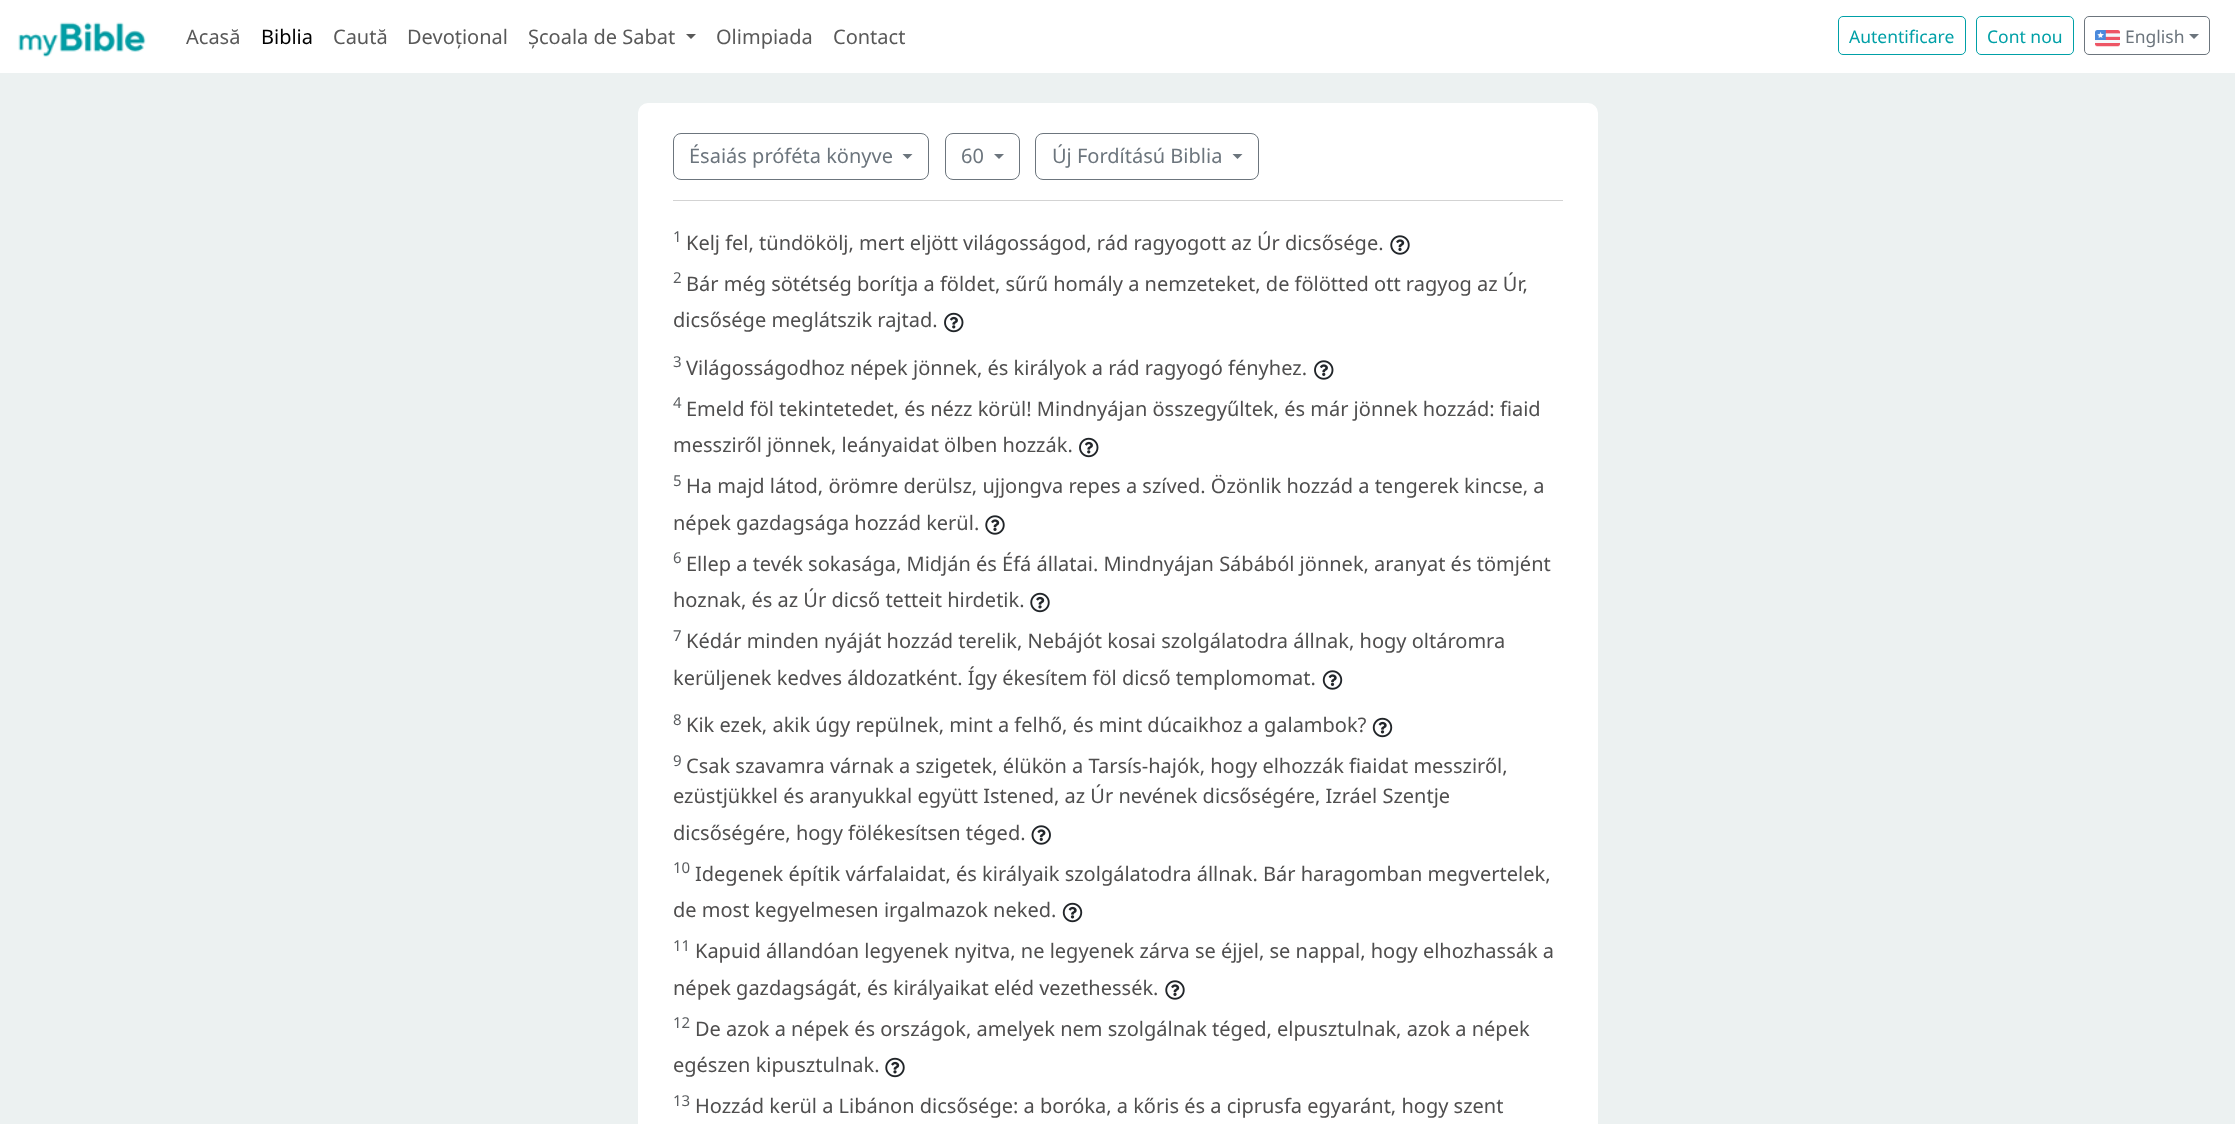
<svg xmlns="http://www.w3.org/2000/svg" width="2235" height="1124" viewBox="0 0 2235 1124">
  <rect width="100%" height="100%" fill="#ecf1f1"/>
  <rect x="0" y="0" width="2235" height="73" fill="#ffffff"/>
  <image x="18" y="22" width="128" height="35" href="img1.png"/>
  <text x="186" y="44" font-family="Noto Sans" font-size="20" fill="#595959">Acasă</text>
  <text x="261" y="44" font-family="Noto Sans" font-size="20" fill="#000000">Biblia</text>
  <text x="333" y="44" font-family="Noto Sans" font-size="20" fill="#595959">Caută</text>
  <text x="407" y="44" font-family="Noto Sans" font-size="20" fill="#595959">Devoțional</text>
  <text x="528" y="44" font-family="Noto Sans" font-size="20" fill="#595959">Școala de Sabat</text>
  <path d="M686 34H696L691 39Z" fill="#595959"/>
  <text x="716" y="44" font-family="Noto Sans" font-size="20" fill="#595959">Olimpiada</text>
  <text x="833" y="44" font-family="Noto Sans" font-size="20" fill="#595959">Contact</text>
  <rect x="1838.5" y="16.5" width="127" height="38" rx="4.5" fill="none" stroke="#00a0a7"/>
  <text x="1849" y="43" font-family="Noto Sans" font-size="17.5" fill="#00a0a7">Autentificare</text>
  <rect x="1976.5" y="16.5" width="97" height="38" rx="4.5" fill="none" stroke="#00a0a7"/>
  <text x="1987" y="43" font-family="Noto Sans" font-size="17.5" fill="#00a0a7">Cont nou</text>
  <rect x="2084.5" y="16.5" width="125" height="38" rx="4.5" fill="none" stroke="#6c757d"/>
  <image x="2095" y="30" width="25" height="17" href="img2.png"/>
  <text x="2125" y="43" font-family="Noto Sans" font-size="17.5" fill="#6c757d">English</text>
  <path d="M2189 34H2199L2194 39Z" fill="#6c757d"/>
  <rect x="638" y="103" width="960" height="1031" rx="10" fill="#ffffff"/>
  <rect x="673.5" y="133.5" width="255" height="46" rx="7.5" fill="none" stroke="#6c757d"/>
  <text x="689" y="163" font-family="Noto Sans" font-size="20" fill="#6c757d">Ésaiás próféta könyve</text>
  <path d="M902.5 154H912.5L907.5 159Z" fill="#6c757d"/>
  <rect x="945.5" y="133.5" width="74" height="46" rx="7.5" fill="none" stroke="#6c757d"/>
  <text x="961" y="163" font-family="Noto Sans" font-size="20" fill="#6c757d">60</text>
  <path d="M994 154H1004L999 159Z" fill="#6c757d"/>
  <rect x="1035.5" y="133.5" width="223" height="46" rx="7.5" fill="none" stroke="#6c757d"/>
  <text x="1052" y="163" font-family="Noto Sans" font-size="20" fill="#6c757d">Új Fordítású Biblia</text>
  <path d="M1232.5 154H1242.5L1237.5 159Z" fill="#6c757d"/>
  <rect x="673" y="200" width="890" height="1" fill="#d3d3d3"/>
  <text x="673" y="242" font-family="Noto Sans" font-size="15" fill="#595c5f">1</text>
  <text x="686" y="250" font-family="Noto Sans" font-size="20" fill="#4f4e4e">Kelj fel, tündökölj, mert eljött világosságod, rád ragyogott az Úr dicsősége.</text>
  <image x="1390" y="235" width="20" height="20" href="img3.png"/>
  <text x="673" y="283" font-family="Noto Sans" font-size="15" fill="#595c5f">2</text>
  <text x="686" y="291" font-family="Noto Sans" font-size="20" fill="#4f4e4e">Bár még sötétség borítja a földet, sűrű homály a nemzeteket, de fölötted ott ragyog az Úr,</text>
  <text x="673" y="327" font-family="Noto Sans" font-size="20" fill="#4f4e4e">dicsősége meglátszik rajtad.</text>
  <image x="944" y="312" width="20" height="21" href="img4.png"/>
  <text x="673" y="367" font-family="Noto Sans" font-size="15" fill="#595c5f">3</text>
  <text x="686" y="375" font-family="Noto Sans" font-size="20" fill="#4f4e4e">Világosságodhoz népek jönnek, és királyok a rád ragyogó fényhez.</text>
  <image x="1314" y="360" width="20" height="20" href="img5.png"/>
  <text x="673" y="408" font-family="Noto Sans" font-size="15" fill="#595c5f">4</text>
  <text x="686" y="416" font-family="Noto Sans" font-size="20" fill="#4f4e4e">Emeld föl tekintetedet, és nézz körül! Mindnyájan összegyűltek, és már jönnek hozzád: fiaid</text>
  <text x="673" y="452" font-family="Noto Sans" font-size="20" fill="#4f4e4e">messziről jönnek, leányaidat ölben hozzák.</text>
  <image x="1079" y="437" width="20" height="21" href="img4.png"/>
  <text x="673" y="486" font-family="Noto Sans" font-size="15" fill="#595c5f">5</text>
  <text x="686" y="493" font-family="Noto Sans" font-size="20" fill="#4f4e4e">Ha majd látod, örömre derülsz, ujjongva repes a szíved. Özönlik hozzád a tengerek kincse, a</text>
  <text x="673" y="530" font-family="Noto Sans" font-size="20" fill="#4f4e4e">népek gazdagsága hozzád kerül.</text>
  <image x="985" y="515" width="20" height="20" href="img3.png"/>
  <text x="673" y="563" font-family="Noto Sans" font-size="15" fill="#595c5f">6</text>
  <text x="686" y="571" font-family="Noto Sans" font-size="20" fill="#4f4e4e">Ellep a tevék sokasága, Midján és Éfá állatai. Mindnyájan Sábából jönnek, aranyat és tömjént</text>
  <text x="673" y="607" font-family="Noto Sans" font-size="20" fill="#4f4e4e">hoznak, és az Úr dicső tetteit hirdetik.</text>
  <image x="1030" y="592" width="20" height="21" href="img6.png"/>
  <text x="673" y="641" font-family="Noto Sans" font-size="15" fill="#595c5f">7</text>
  <text x="686" y="648" font-family="Noto Sans" font-size="20" fill="#4f4e4e">Kédár minden nyáját hozzád terelik, Nebájót kosai szolgálatodra állnak, hogy oltáromra</text>
  <text x="673" y="685" font-family="Noto Sans" font-size="20" fill="#4f4e4e">kerüljenek kedves áldozatként. Így ékesítem föl dicső templomomat.</text>
  <image x="1322" y="670" width="21" height="20" href="img7.png"/>
  <text x="673" y="725" font-family="Noto Sans" font-size="15" fill="#595c5f">8</text>
  <text x="686" y="732" font-family="Noto Sans" font-size="20" fill="#4f4e4e">Kik ezek, akik úgy repülnek, mint a felhő, és mint dúcaikhoz a galambok?</text>
  <image x="1372" y="717" width="21" height="21" href="img8.png"/>
  <text x="673" y="766" font-family="Noto Sans" font-size="15" fill="#595c5f">9</text>
  <text x="686" y="773" font-family="Noto Sans" font-size="20" fill="#4f4e4e">Csak szavamra várnak a szigetek, élükön a Tarsís-hajók, hogy elhozzák fiaidat messziről,</text>
  <text x="673" y="803" font-family="Noto Sans" font-size="20" fill="#4f4e4e">ezüstjükkel és aranyukkal együtt Istened, az Úr nevének dicsőségére, Izráel Szentje</text>
  <text x="673" y="840" font-family="Noto Sans" font-size="20" fill="#4f4e4e">dicsőségére, hogy fölékesítsen téged.</text>
  <image x="1031" y="825" width="20" height="20" href="img9.png"/>
  <text x="673" y="873" font-family="Noto Sans" font-size="15" fill="#595c5f">10</text>
  <text x="695" y="881" font-family="Noto Sans" font-size="20" fill="#4f4e4e">Idegenek építik várfalaidat, és királyaik szolgálatodra állnak. Bár haragomban megvertelek,</text>
  <text x="673" y="917" font-family="Noto Sans" font-size="20" fill="#4f4e4e">de most kegyelmesen irgalmazok neked.</text>
  <image x="1062" y="902" width="21" height="21" href="img8.png"/>
  <text x="673" y="951" font-family="Noto Sans" font-size="15" fill="#595c5f">11</text>
  <text x="695" y="958" font-family="Noto Sans" font-size="20" fill="#4f4e4e">Kapuid állandóan legyenek nyitva, ne legyenek zárva se éjjel, se nappal, hogy elhozhassák a</text>
  <text x="673" y="995" font-family="Noto Sans" font-size="20" fill="#4f4e4e">népek gazdagságát, és királyaikat eléd vezethessék.</text>
  <image x="1165" y="980" width="20" height="20" href="img3.png"/>
  <text x="673" y="1028" font-family="Noto Sans" font-size="15" fill="#595c5f">12</text>
  <text x="695" y="1036" font-family="Noto Sans" font-size="20" fill="#4f4e4e">De azok a népek és országok, amelyek nem szolgálnak téged, elpusztulnak, azok a népek</text>
  <text x="673" y="1072" font-family="Noto Sans" font-size="20" fill="#4f4e4e">egészen kipusztulnak.</text>
  <image x="885" y="1057" width="20" height="21" href="img6.png"/>
  <text x="673" y="1106" font-family="Noto Sans" font-size="15" fill="#595c5f">13</text>
  <text x="695" y="1113" font-family="Noto Sans" font-size="20" fill="#4f4e4e">Hozzád kerül a Libánon dicsősége: a boróka, a kőris és a ciprusfa egyaránt, hogy szent</text>
</svg>
